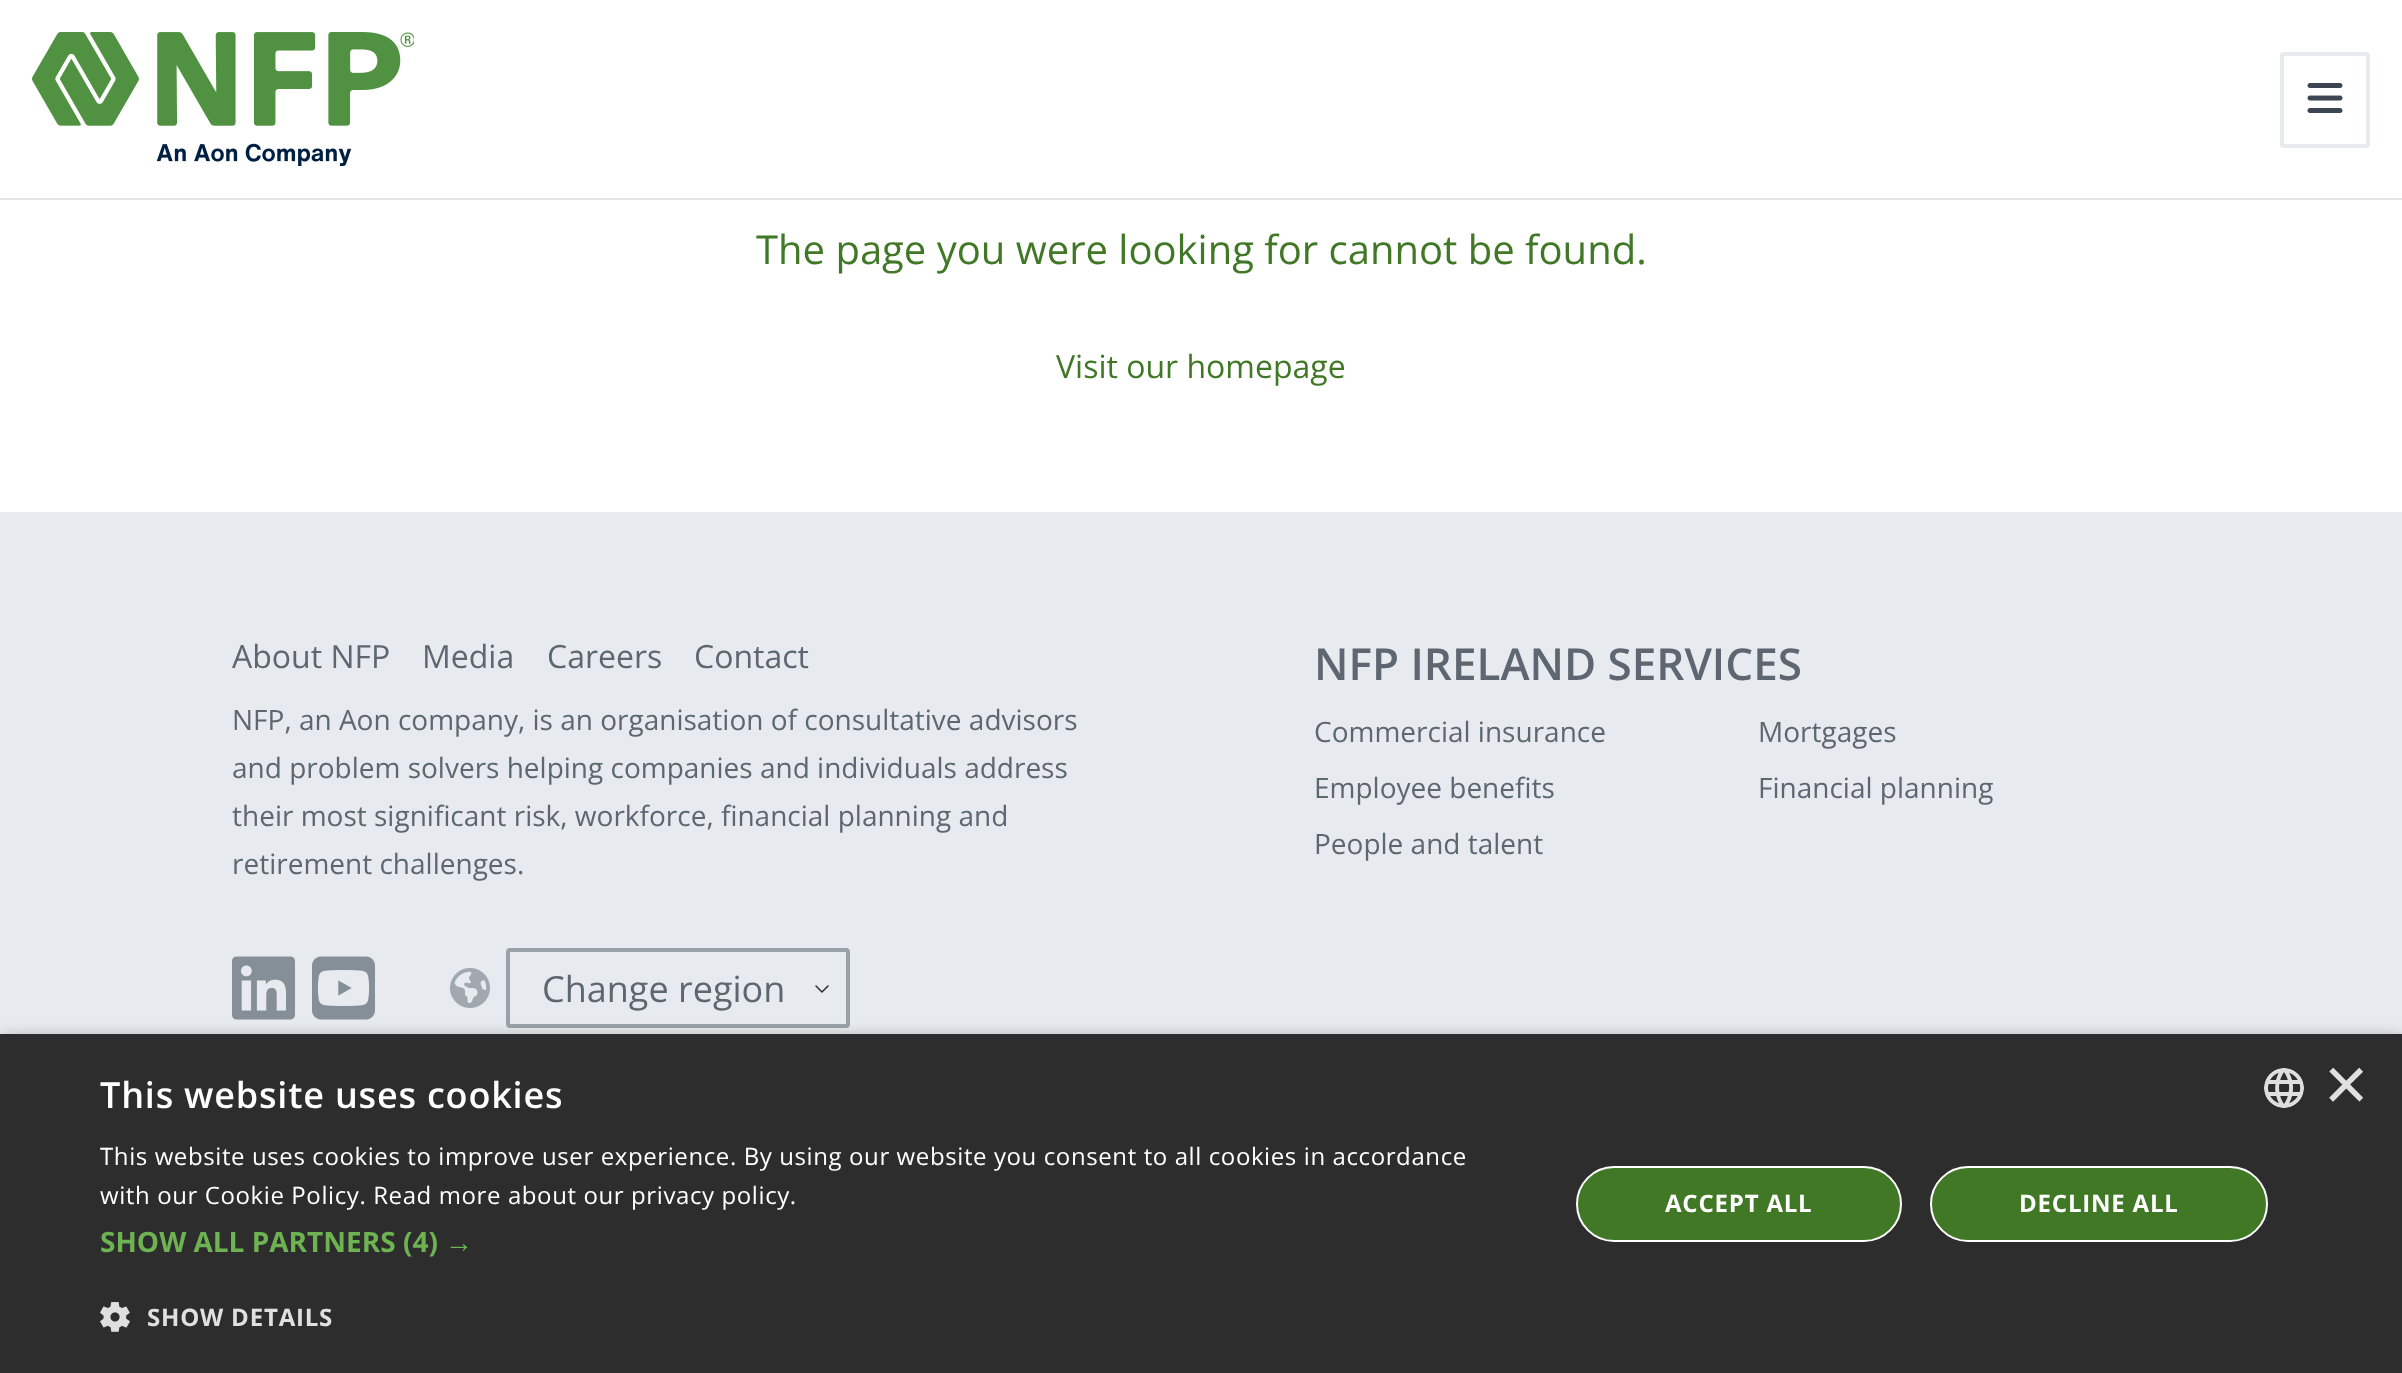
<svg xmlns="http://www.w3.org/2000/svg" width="2402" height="1373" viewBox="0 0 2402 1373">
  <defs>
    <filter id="blur1" x="-50%" y="-200%" width="200%" height="500%"><feGaussianBlur stdDeviation="8"/></filter>
  </defs>
  <rect width="100%" height="100%" fill="#ffffff"/>
  <rect x="0" y="198" width="2402" height="2" fill="#000000" fill-opacity="0.1"/>
  <image x="32" y="32" width="382" height="134" href="img1.png"/>
  <rect x="2282" y="54" width="86" height="92" rx="2" fill="none" stroke="#e7eaee" stroke-width="4"/>
  <image x="2307" y="83" width="36" height="30" href="img2.png"/>
  <text x="756" y="264" font-family="Open Sans" font-size="40" fill="#407826">The page you were looking for cannot be found.</text>
  <text x="1056" y="378" font-family="Open Sans" font-size="32" fill="#407826">Visit our homepage</text>
  <rect x="0" y="512" width="2402" height="522" fill="#e7eaee"/>
  <text x="232" y="668" font-family="Open Sans" font-size="32" fill="#5e6771">About NFP</text>
  <text x="422" y="668" font-family="Open Sans" font-size="32" fill="#5e6771">Media</text>
  <text x="547" y="668" font-family="Open Sans" font-size="32" fill="#5e6771">Careers</text>
  <text x="694" y="668" font-family="Open Sans" font-size="32" fill="#5e6771">Contact</text>
  <text x="232" y="730" font-family="Open Sans" font-size="28" fill="#5e6771">NFP, an Aon company, is an organisation of consultative advisors</text>
  <text x="232" y="778" font-family="Open Sans" font-size="28" fill="#5e6771">and problem solvers helping companies and individuals address</text>
  <text x="232" y="826" font-family="Open Sans" font-size="28" fill="#5e6771">their most significant risk, workforce, financial planning and</text>
  <text x="232" y="874" font-family="Open Sans" font-size="28" fill="#5e6771">retirement challenges.</text>
  <image x="232" y="956" width="63" height="64" href="img3.png"/>
  <image x="312" y="956" width="63" height="64" href="img4.png"/>
  <image x="450" y="968" width="40" height="40" href="img5.png"/>
  <rect x="508" y="950" width="340" height="76" rx="2" fill="none" stroke="#99a1a9" stroke-width="4"/>
  <text x="542" y="1002" font-family="Open Sans" font-size="36" fill="#5e6771">Change region</text>
  <image x="815" y="985" width="14" height="8" href="img6.png"/>
  <text x="1314" y="680" font-family="Open Sans" font-size="44" font-weight="600" fill="#5e6771">NFP IRELAND SERVICES</text>
  <text x="1314" y="742" font-family="Open Sans" font-size="28" fill="#5e6771">Commercial insurance</text>
  <text x="1758" y="742" font-family="Open Sans" font-size="28" fill="#5e6771">Mortgages</text>
  <text x="1314" y="798" font-family="Open Sans" font-size="28" fill="#5e6771">Employee benefits</text>
  <text x="1758" y="798" font-family="Open Sans" font-size="28" fill="#5e6771">Financial planning</text>
  <text x="1314" y="854" font-family="Open Sans" font-size="28" fill="#5e6771">People and talent</text>
  <rect x="2" y="1038" width="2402" height="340" fill="#000000" fill-opacity="0.35" filter="url(#blur1)"/>
  <rect x="0" y="1034" width="2402" height="339" fill="#2d2d2d"/>
  <text x="100" y="1108" font-family="Open Sans" font-size="36" font-weight="600" letter-spacing="0.8" fill="#ffffff">This website uses cookies</text>
  <text x="100" y="1165" font-family="Open Sans" font-size="24" letter-spacing="0.6" fill="#ffffff">This website uses cookies to improve user experience. By using our website you consent to all cookies in accordance</text>
  <text x="100" y="1204" font-family="Open Sans" font-size="24" letter-spacing="0.6" fill="#ffffff">with our Cookie Policy. Read more about our privacy policy.</text>
  <text x="100" y="1252" font-family="Open Sans" font-size="28" font-weight="bold" fill="#6db352">SHOW ALL PARTNERS (4)</text>
  <text x="445" y="1252" font-family="Liberation Sans" font-size="28" font-weight="bold" fill="#6db352">→</text>
  <image x="100" y="1302" width="30" height="30" href="img7.png"/>
  <text x="147" y="1326" font-family="Open Sans" font-size="24" font-weight="bold" letter-spacing="0.8" fill="#e0e0e0">SHOW DETAILS</text>
  <rect x="1577" y="1167" width="324" height="74" rx="37" fill="#407826" stroke="#ffffff" stroke-width="2"/>
  <text x="1665" y="1212" font-family="Open Sans" font-size="24" font-weight="bold" letter-spacing="0.8" fill="#ffffff">ACCEPT ALL</text>
  <rect x="1931" y="1167" width="336" height="74" rx="37" fill="#407826" stroke="#ffffff" stroke-width="2"/>
  <text x="2019" y="1212" font-family="Open Sans" font-size="24" font-weight="bold" letter-spacing="0.8" fill="#ffffff">DECLINE ALL</text>
  <image x="2264" y="1068" width="40" height="40" href="img8.png"/>
  <text x="2324" y="1110" font-family="Liberation Sans" font-size="76" fill="#e0e0e0">×</text>
</svg>
